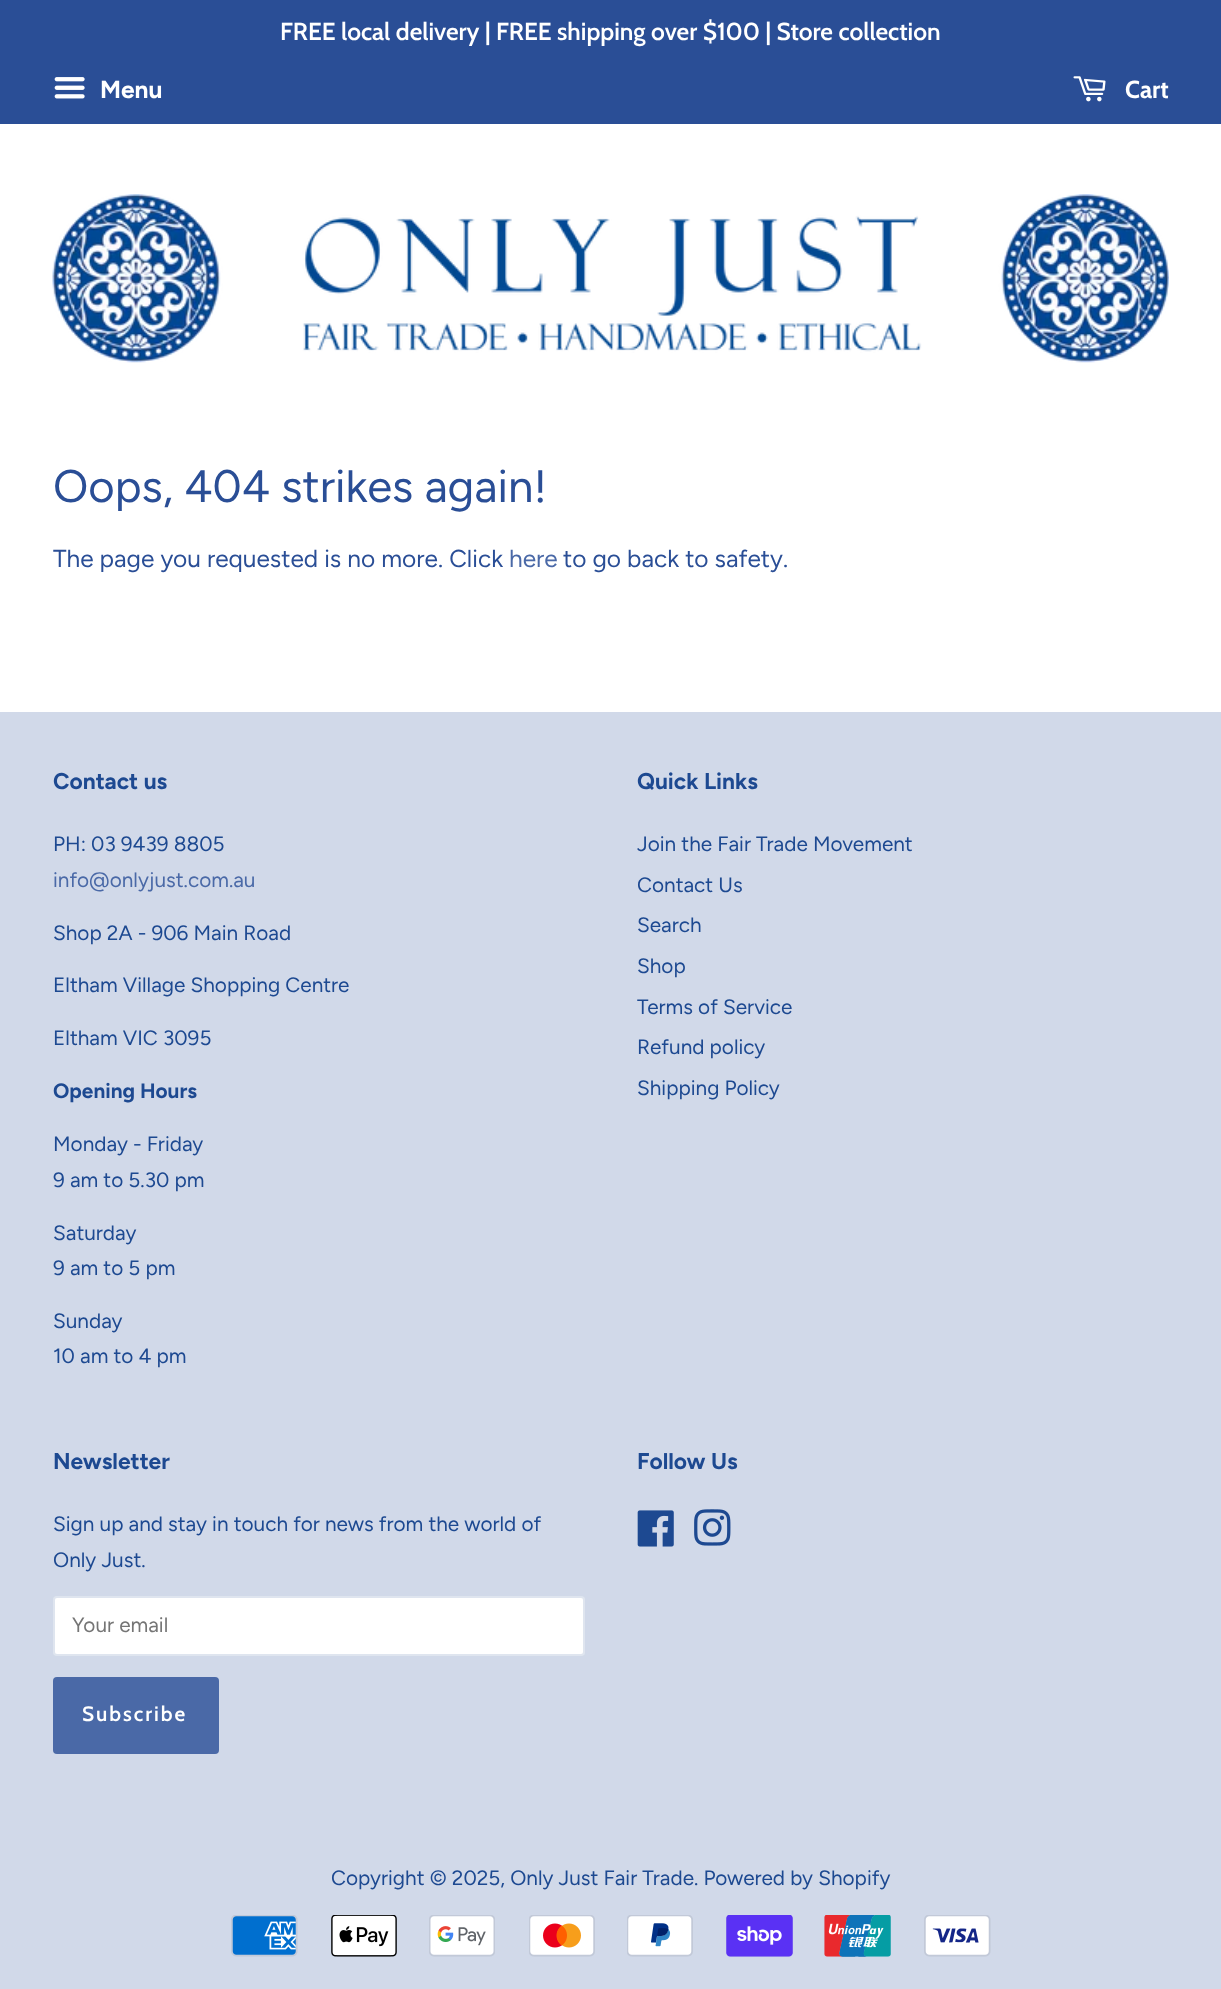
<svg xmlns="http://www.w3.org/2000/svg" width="1221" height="1989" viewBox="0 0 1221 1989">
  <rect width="100%" height="100%" fill="#ffffff"/>
  <rect x="0" y="0" width="1221" height="124" fill="#2a4e96"/>
  <text x="280" y="40" font-family="Cabin" font-size="24.5" font-weight="600" fill="#ffffff">FREE local delivery | FREE shipping over $100 | Store collection</text>
  <image x="54" y="77" width="31" height="22" href="img1.png"/>
  <text x="100" y="98" font-family="Figtree" font-size="24.5" font-weight="bold" fill="#ffffff">Menu</text>
  <image x="1073" y="76" width="33" height="26" href="img2.png"/>
  <text x="1125" y="98" font-family="Cabin" font-size="24.5" font-weight="bold" fill="#ffffff">Cart</text>
  <image x="52" y="194" width="1117" height="169" href="img3.png"/>
  <text x="53" y="502" font-family="Figtree" font-size="45.5" fill="#2a4e96">Oops, 404 strikes again!</text>
  <text x="53" y="567" font-family="Figtree" font-size="24.5" fill="#2a4e96">The page you requested is no more. Click</text>
  <text x="509" y="567" font-family="Figtree" font-size="24.5" fill="#4a69a7">here</text>
  <text x="563" y="567" font-family="Figtree" font-size="24.5" fill="#2a4e96">to go back to safety.</text>
  <rect x="0" y="712" width="1221" height="1277" fill="#d1d9e9"/>
  <text x="53" y="789" font-family="Figtree" font-size="22.75" font-weight="bold" fill="#1d4991">Contact us</text>
  <text x="53" y="851" font-family="Figtree" font-size="20.8" fill="#1d4991">PH: 03 9439 8805</text>
  <text x="53" y="887" font-family="Figtree" font-size="20.8" fill="#4a69a7">info@onlyjust.com.au</text>
  <text x="53" y="940" font-family="Figtree" font-size="20.8" fill="#1d4991">Shop 2A - 906 Main Road</text>
  <text x="53" y="992" font-family="Figtree" font-size="20.8" fill="#1d4991">Eltham Village Shopping Centre</text>
  <text x="53" y="1045" font-family="Figtree" font-size="20.8" fill="#1d4991">Eltham VIC 3095</text>
  <text x="53" y="1098" font-family="Figtree" font-size="20.8" font-weight="bold" fill="#1d4991">Opening Hours</text>
  <text x="53" y="1151" font-family="Figtree" font-size="20.8" fill="#1d4991">Monday - Friday</text>
  <text x="53" y="1187" font-family="Figtree" font-size="20.8" fill="#1d4991">9 am to 5.30 pm</text>
  <text x="53" y="1240" font-family="Figtree" font-size="20.8" fill="#1d4991">Saturday</text>
  <text x="53" y="1275" font-family="Figtree" font-size="20.8" fill="#1d4991">9 am to 5 pm</text>
  <text x="53" y="1328" font-family="Figtree" font-size="20.8" fill="#1d4991">Sunday</text>
  <text x="53" y="1363" font-family="Figtree" font-size="20.8" fill="#1d4991">10 am to 4 pm</text>
  <text x="637" y="789" font-family="Figtree" font-size="22.75" font-weight="bold" fill="#1d4991">Quick Links</text>
  <text x="637" y="851" font-family="Figtree" font-size="20.8" fill="#1d4991">Join the Fair Trade Movement</text>
  <text x="637" y="892" font-family="Figtree" font-size="20.8" fill="#1d4991">Contact Us</text>
  <text x="637" y="932" font-family="Figtree" font-size="20.8" fill="#1d4991">Search</text>
  <text x="637" y="973" font-family="Figtree" font-size="20.8" fill="#1d4991">Shop</text>
  <text x="637" y="1014" font-family="Figtree" font-size="20.8" fill="#1d4991">Terms of Service</text>
  <text x="637" y="1054" font-family="Figtree" font-size="20.8" fill="#1d4991">Refund policy</text>
  <text x="637" y="1095" font-family="Figtree" font-size="20.8" fill="#1d4991">Shipping Policy</text>
  <text x="53" y="1469" font-family="Figtree" font-size="22.75" font-weight="bold" fill="#1d4991">Newsletter</text>
  <text x="53" y="1531" font-family="Figtree" font-size="20.8" fill="#1d4991">Sign up and stay in touch for news from the world of</text>
  <text x="53" y="1567" font-family="Figtree" font-size="20.8" fill="#1d4991">Only Just.</text>
  <rect x="53" y="1596" width="532" height="60" rx="4" fill="#ffffff"/>
  <rect x="54" y="1597" width="530" height="58" rx="3" fill="none" stroke="#2a4e96" stroke-opacity="0.15" stroke-width="2"/>
  <text x="72" y="1632" font-family="Figtree" font-size="20.8" fill="#757575">Your email</text>
  <rect x="53" y="1677" width="166" height="77" rx="4" fill="#4a69a7"/>
  <text x="82" y="1721" font-family="Cabin" font-size="20.8" font-weight="600" letter-spacing="2" fill="#ffffff">Subscribe</text>
  <text x="637" y="1469" font-family="Figtree" font-size="22.75" font-weight="bold" fill="#1d4991">Follow Us</text>
  <image x="637" y="1510" width="37" height="37" href="img4.png"/>
  <image x="694" y="1509" width="37" height="37" href="img5.png"/>
  <text x="331" y="1885" font-family="Figtree" font-size="20.8" fill="#1d4991">Copyright © 2025, Only Just Fair Trade. Powered by Shopify</text>
  <image x="231" y="1915" width="67" height="42" href="img6.png"/>
  <image x="331" y="1915" width="66" height="42" href="img7.png"/>
  <image x="429" y="1915" width="66" height="42" href="img8.png"/>
  <image x="529" y="1915" width="66" height="42" href="img9.png"/>
  <image x="627" y="1915" width="66" height="42" href="img10.png"/>
  <image x="726" y="1915" width="67" height="42" href="img11.png"/>
  <image x="824" y="1915" width="67" height="42" href="img12.png"/>
  <image x="924" y="1915" width="67" height="42" href="img13.png"/>
</svg>
